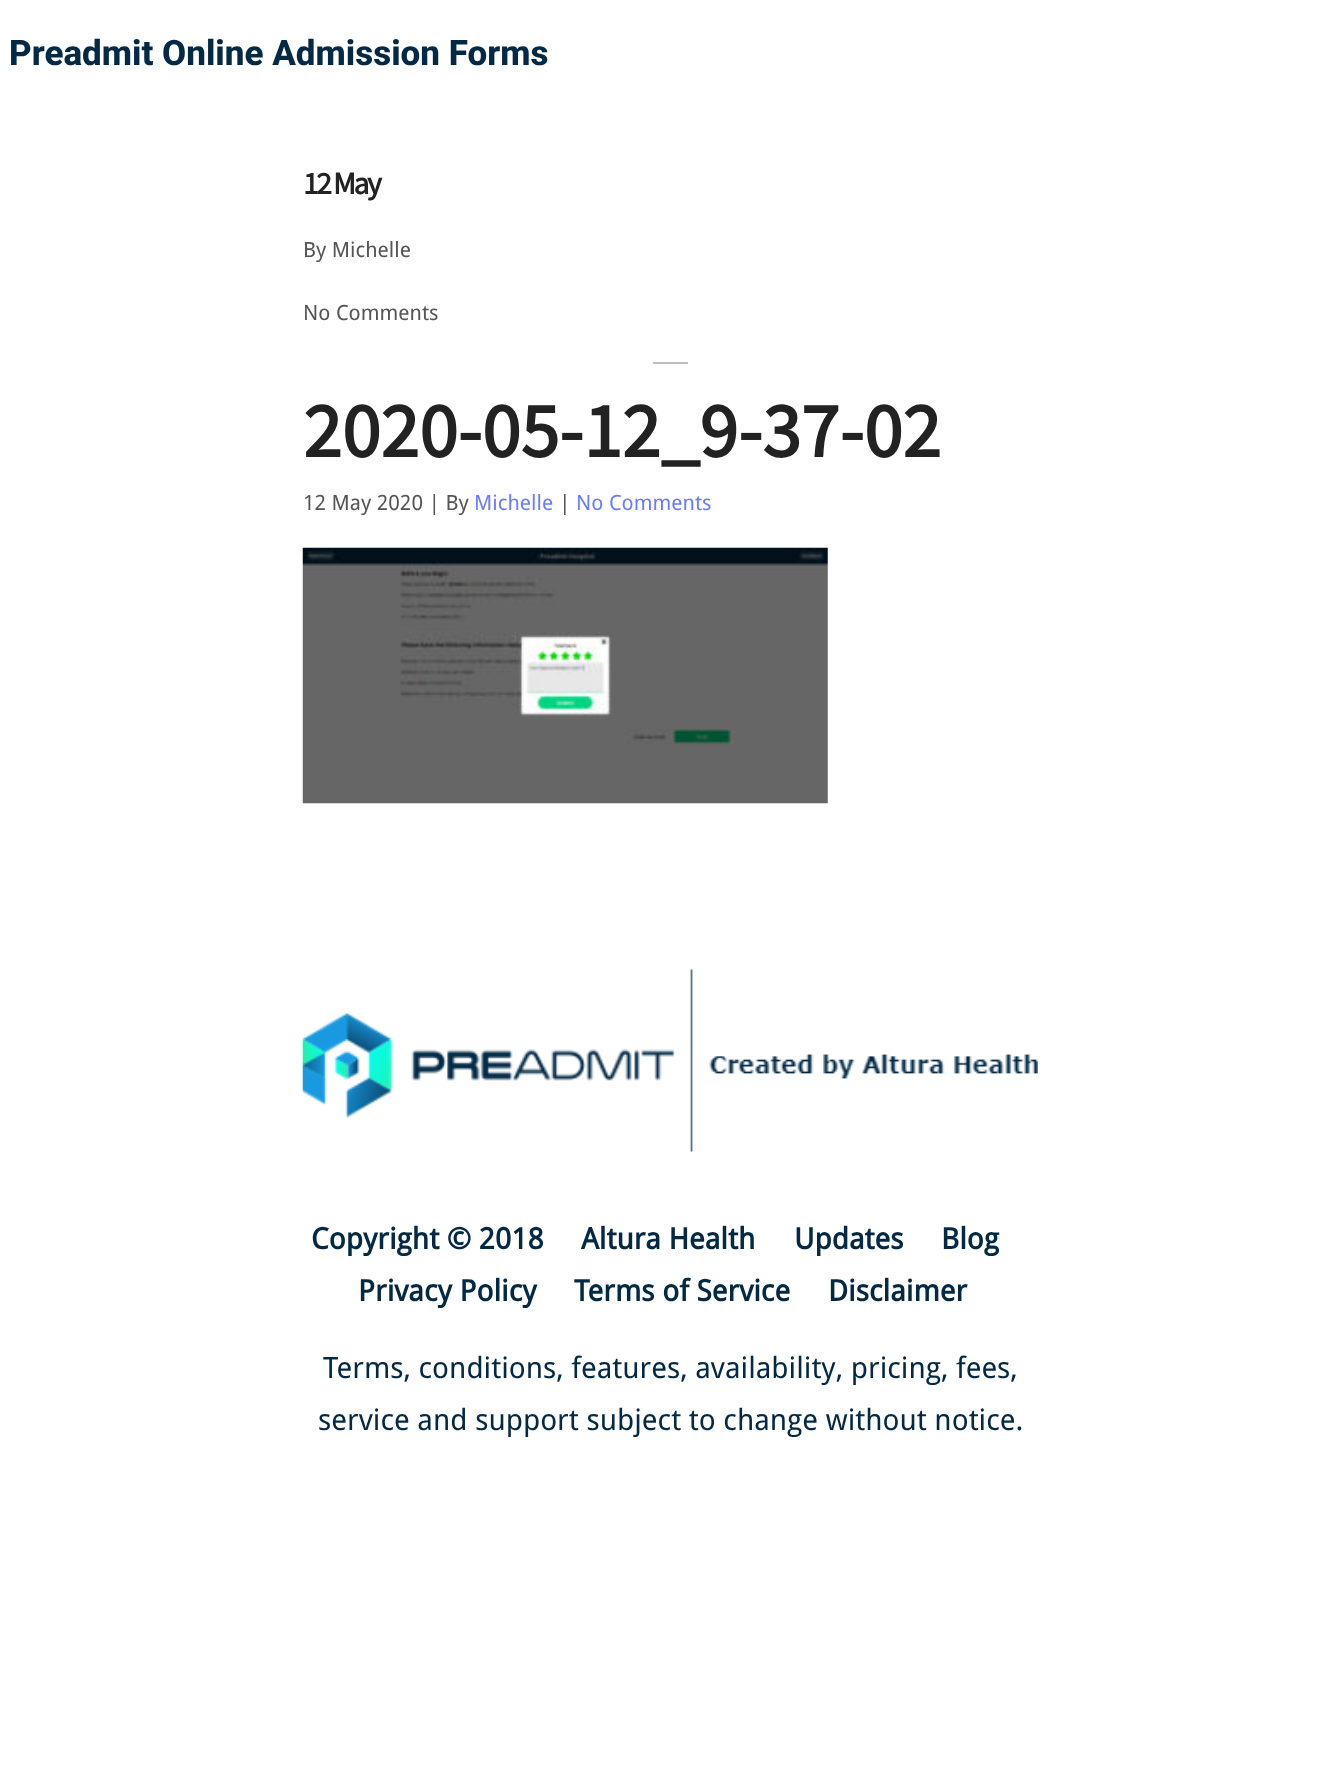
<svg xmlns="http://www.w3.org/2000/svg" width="1340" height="1768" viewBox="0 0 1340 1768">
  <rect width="100%" height="100%" fill="#ffffff"/>
  <text x="9" y="65" font-family="Roboto" font-size="35" font-weight="800" fill="#042944">Preadmit Online Admission Forms</text>
  <image x="302" y="969" width="736" height="183" href="img1.png"/>
  <text x="311" y="1249" font-family="Droid Sans" font-size="29.4" font-weight="bold" fill="#042944">Copyright © 2018</text>
  <text x="581" y="1249" font-family="Droid Sans" font-size="29.4" font-weight="bold" fill="#042944">Altura Health</text>
  <text x="794" y="1249" font-family="Droid Sans" font-size="29.4" font-weight="bold" fill="#042944">Updates</text>
  <text x="941" y="1249" font-family="Droid Sans" font-size="29.4" font-weight="bold" fill="#042944">Blog</text>
  <text x="358" y="1301" font-family="Droid Sans" font-size="29.4" font-weight="bold" fill="#042944">Privacy Policy</text>
  <text x="574" y="1301" font-family="Droid Sans" font-size="29.4" font-weight="bold" fill="#042944">Terms of Service</text>
  <text x="828" y="1301" font-family="Droid Sans" font-size="29.4" font-weight="bold" fill="#042944">Disclaimer</text>
  <text x="323" y="1378" font-family="Droid Sans" font-size="29.4" fill="#042944">Terms, conditions, features, availability, pricing, fees,</text>
  <text x="318" y="1430" font-family="Droid Sans" font-size="29.4" fill="#042944">service and support subject to change without notice.</text>
  <text x="303" y="194" font-family="Source Sans Pro" font-size="31.5" font-weight="bold" letter-spacing="-2.5" fill="#222222">12 May</text>
  <text x="303" y="257" font-family="Droid Sans" font-size="21" fill="#555555">By Michelle</text>
  <text x="303" y="320" font-family="Droid Sans" font-size="21" fill="#555555">No Comments</text>
  <rect x="653" y="362" width="35" height="2" fill="#bfbfbf"/>
  <text x="303" y="457" font-family="Source Sans Pro" font-size="77.75" font-weight="bold" fill="#222222">2020-05-12_9-37-02</text>
  <text x="303" y="510" font-family="Droid Sans" font-size="21" fill="#555555">12 May 2020 | By</text>
  <text x="474" y="510" font-family="Droid Sans" font-size="21" fill="#6a7dff">Michelle</text>
  <text x="559" y="510" font-family="Droid Sans" font-size="21" fill="#555555">|</text>
  <text x="576" y="510" font-family="Droid Sans" font-size="21" fill="#6a7dff">No Comments</text>
  <image x="302" y="547" width="526" height="257" href="img2.png"/>
</svg>
